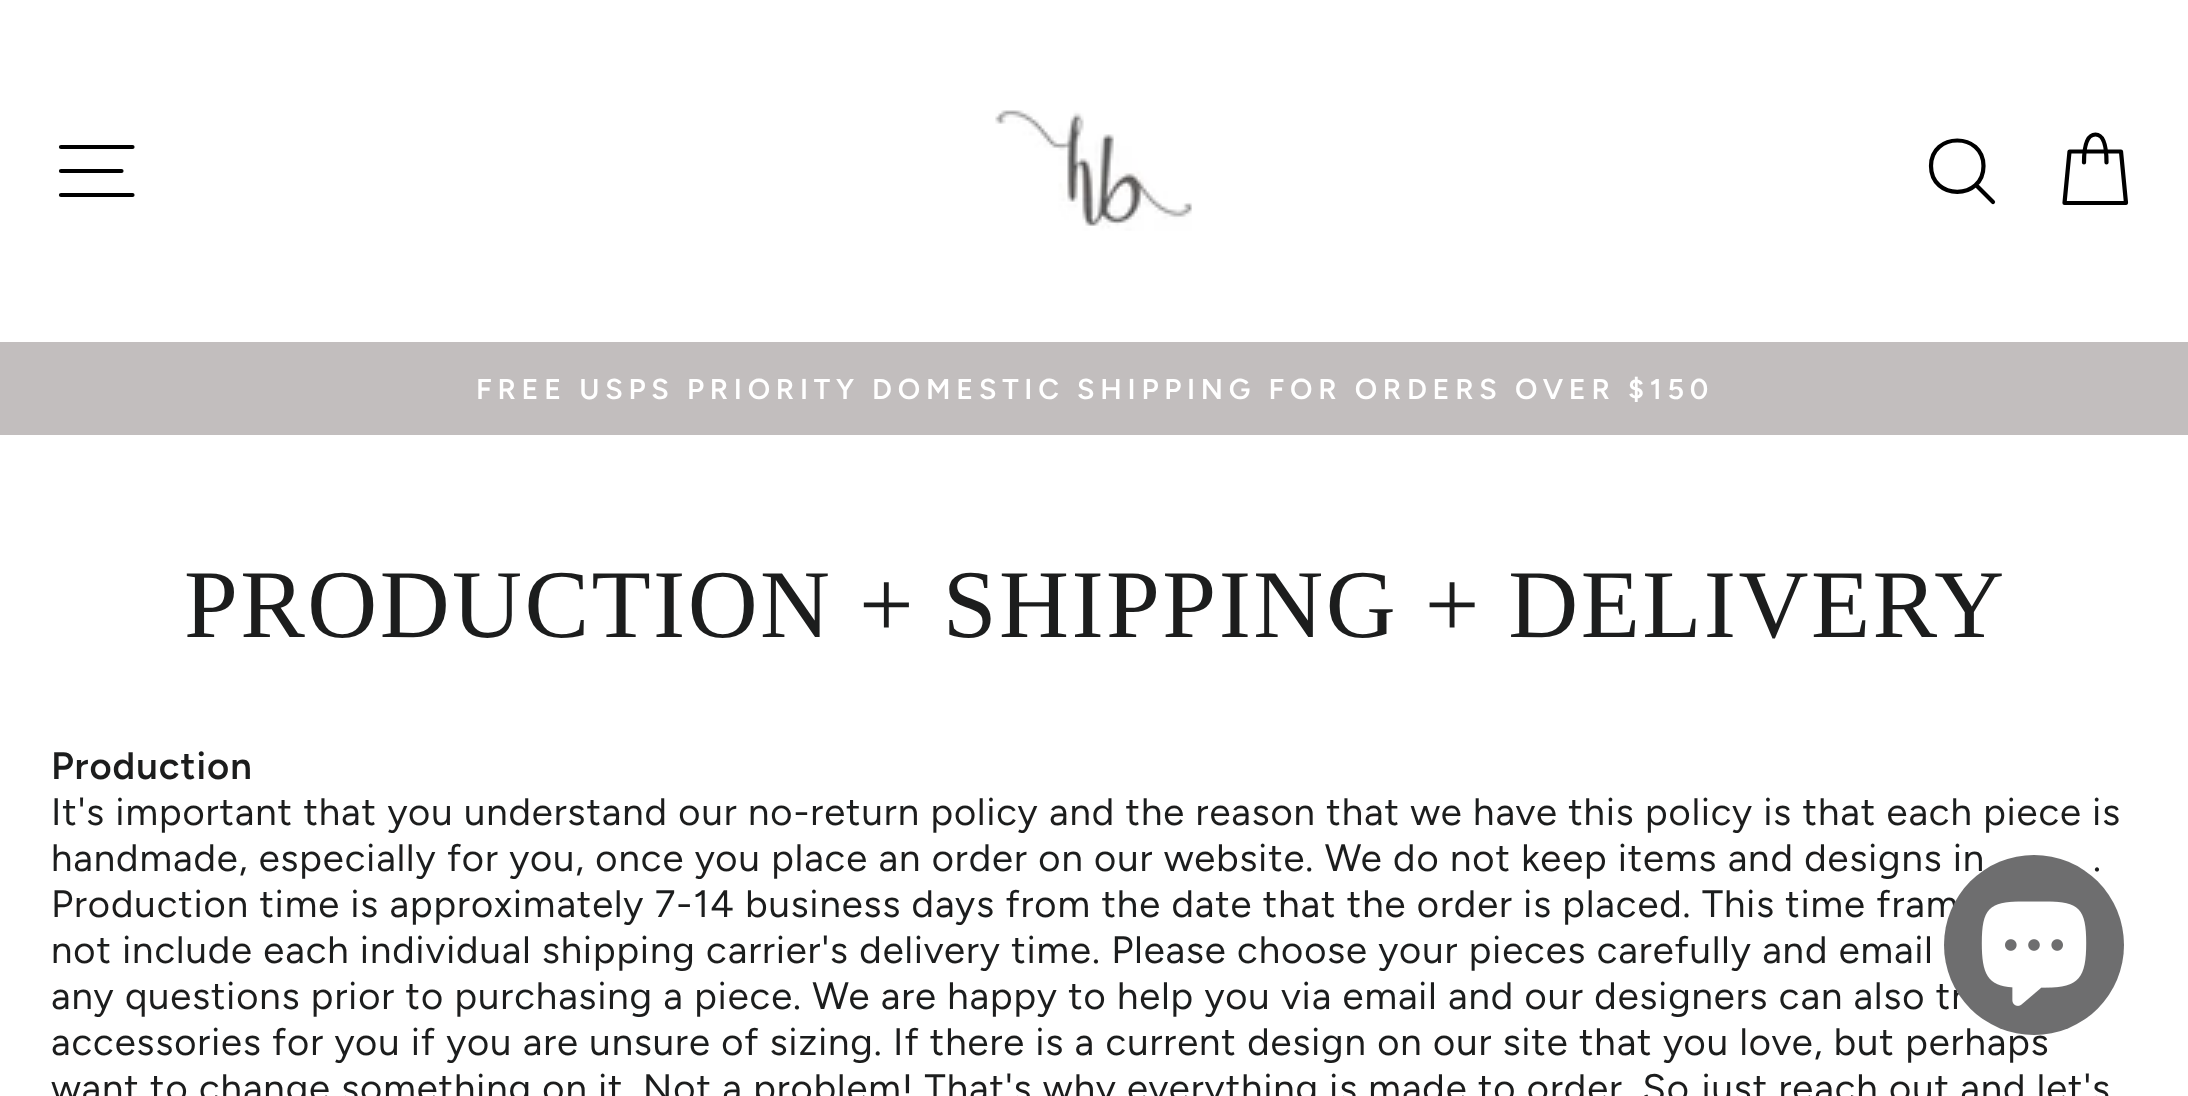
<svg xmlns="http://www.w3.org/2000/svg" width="2188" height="1096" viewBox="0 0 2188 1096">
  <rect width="100%" height="100%" fill="#ffffff"/>
  <path d="M61 147H132.5M61 171H121.5M61 195H132.5" fill="none" stroke="#000000" stroke-width="4.2" stroke-linecap="round" stroke-linejoin="round"/>
  <image x="995" y="110" width="197" height="121" href="img1.png"/>
  <path d="M1983.5 166C1983.5 200.5 1931 200.5 1931 166C1931 132 1983.5 132 1983.5 166ZM1993 202L1976 185" fill="none" stroke="#000000" stroke-width="4.2" stroke-linecap="round" stroke-linejoin="round"/>
  <path d="M2084 162.5C2084 140.5 2089 134.5 2095.5 134.5C2101.5 134.5 2106.5 140.5 2106.5 162.5" fill="none" stroke="#000000" stroke-width="4.2" stroke-linecap="round" stroke-linejoin="round"/>
  <path d="M2069.5 151.5H2121L2126 203H2064.5Z" fill="none" stroke="#000000" stroke-width="4.2" stroke-linecap="round" stroke-linejoin="round"/>
  <rect x="0" y="342" width="2188" height="93" fill="#c2bebe"/>
  <text x="476" y="399" word-spacing="-0.25" font-family="Figtree" font-size="28.7" font-weight="600" letter-spacing="5.75" fill="#ffffff">FREE USPS PRIORITY DOMESTIC SHIPPING FOR ORDERS OVER $150</text>
  <text x="184" y="637" font-family="Liberation Serif" font-size="96.9" letter-spacing="2.4" fill="#1c1d1d">PRODUCTION + SHIPPING + DELIVERY</text>
  <text x="51" y="779" font-family="Figtree" font-size="38.25" font-weight="600" letter-spacing="0.96" fill="#1c1d1d">Production</text>
  <text x="51" y="825" font-family="Figtree" font-size="38.25" letter-spacing="0.96" fill="#1c1d1d">It's important that you understand our no-return policy and the reason that we have this policy is that each piece is</text>
  <text x="51" y="871" font-family="Figtree" font-size="38.25" letter-spacing="0.96" fill="#1c1d1d">handmade, especially for you, once you place an order on our website. We do not keep items and designs in</text>
  <text x="2093" y="871" font-family="Figtree" font-size="38.25" letter-spacing="0.96" fill="#1c1d1d">.</text>
  <text x="51" y="917" font-family="Figtree" font-size="38.25" letter-spacing="0.96" fill="#1c1d1d">Production time is approximately 7-14 business days from the date that the order is placed. This time fram</text>
  <text x="51" y="963" font-family="Figtree" font-size="38.25" letter-spacing="0.96" fill="#1c1d1d">not include each individual shipping carrier's delivery time. Please choose your pieces carefully and email</text>
  <text x="51" y="1009" font-family="Figtree" font-size="38.25" letter-spacing="0.96" fill="#1c1d1d">any questions prior to purchasing a piece. We are happy to help you via email and our designers can also tr</text>
  <text x="51" y="1055" font-family="Figtree" font-size="38.25" letter-spacing="0.96" fill="#1c1d1d">accessories for you if you are unsure of sizing. If there is a current design on our site that you love, but perhaps</text>
  <text x="51" y="1101" font-family="Figtree" font-size="38.25" letter-spacing="0.96" fill="#1c1d1d">want to change something on it. Not a problem! That's why everything is made to order. So just reach out and let's</text>
  <circle cx="2034" cy="945" r="90" fill="#6e6e6f"/>
  <image x="1981" y="901" width="106" height="105" href="img2.png"/>
</svg>
